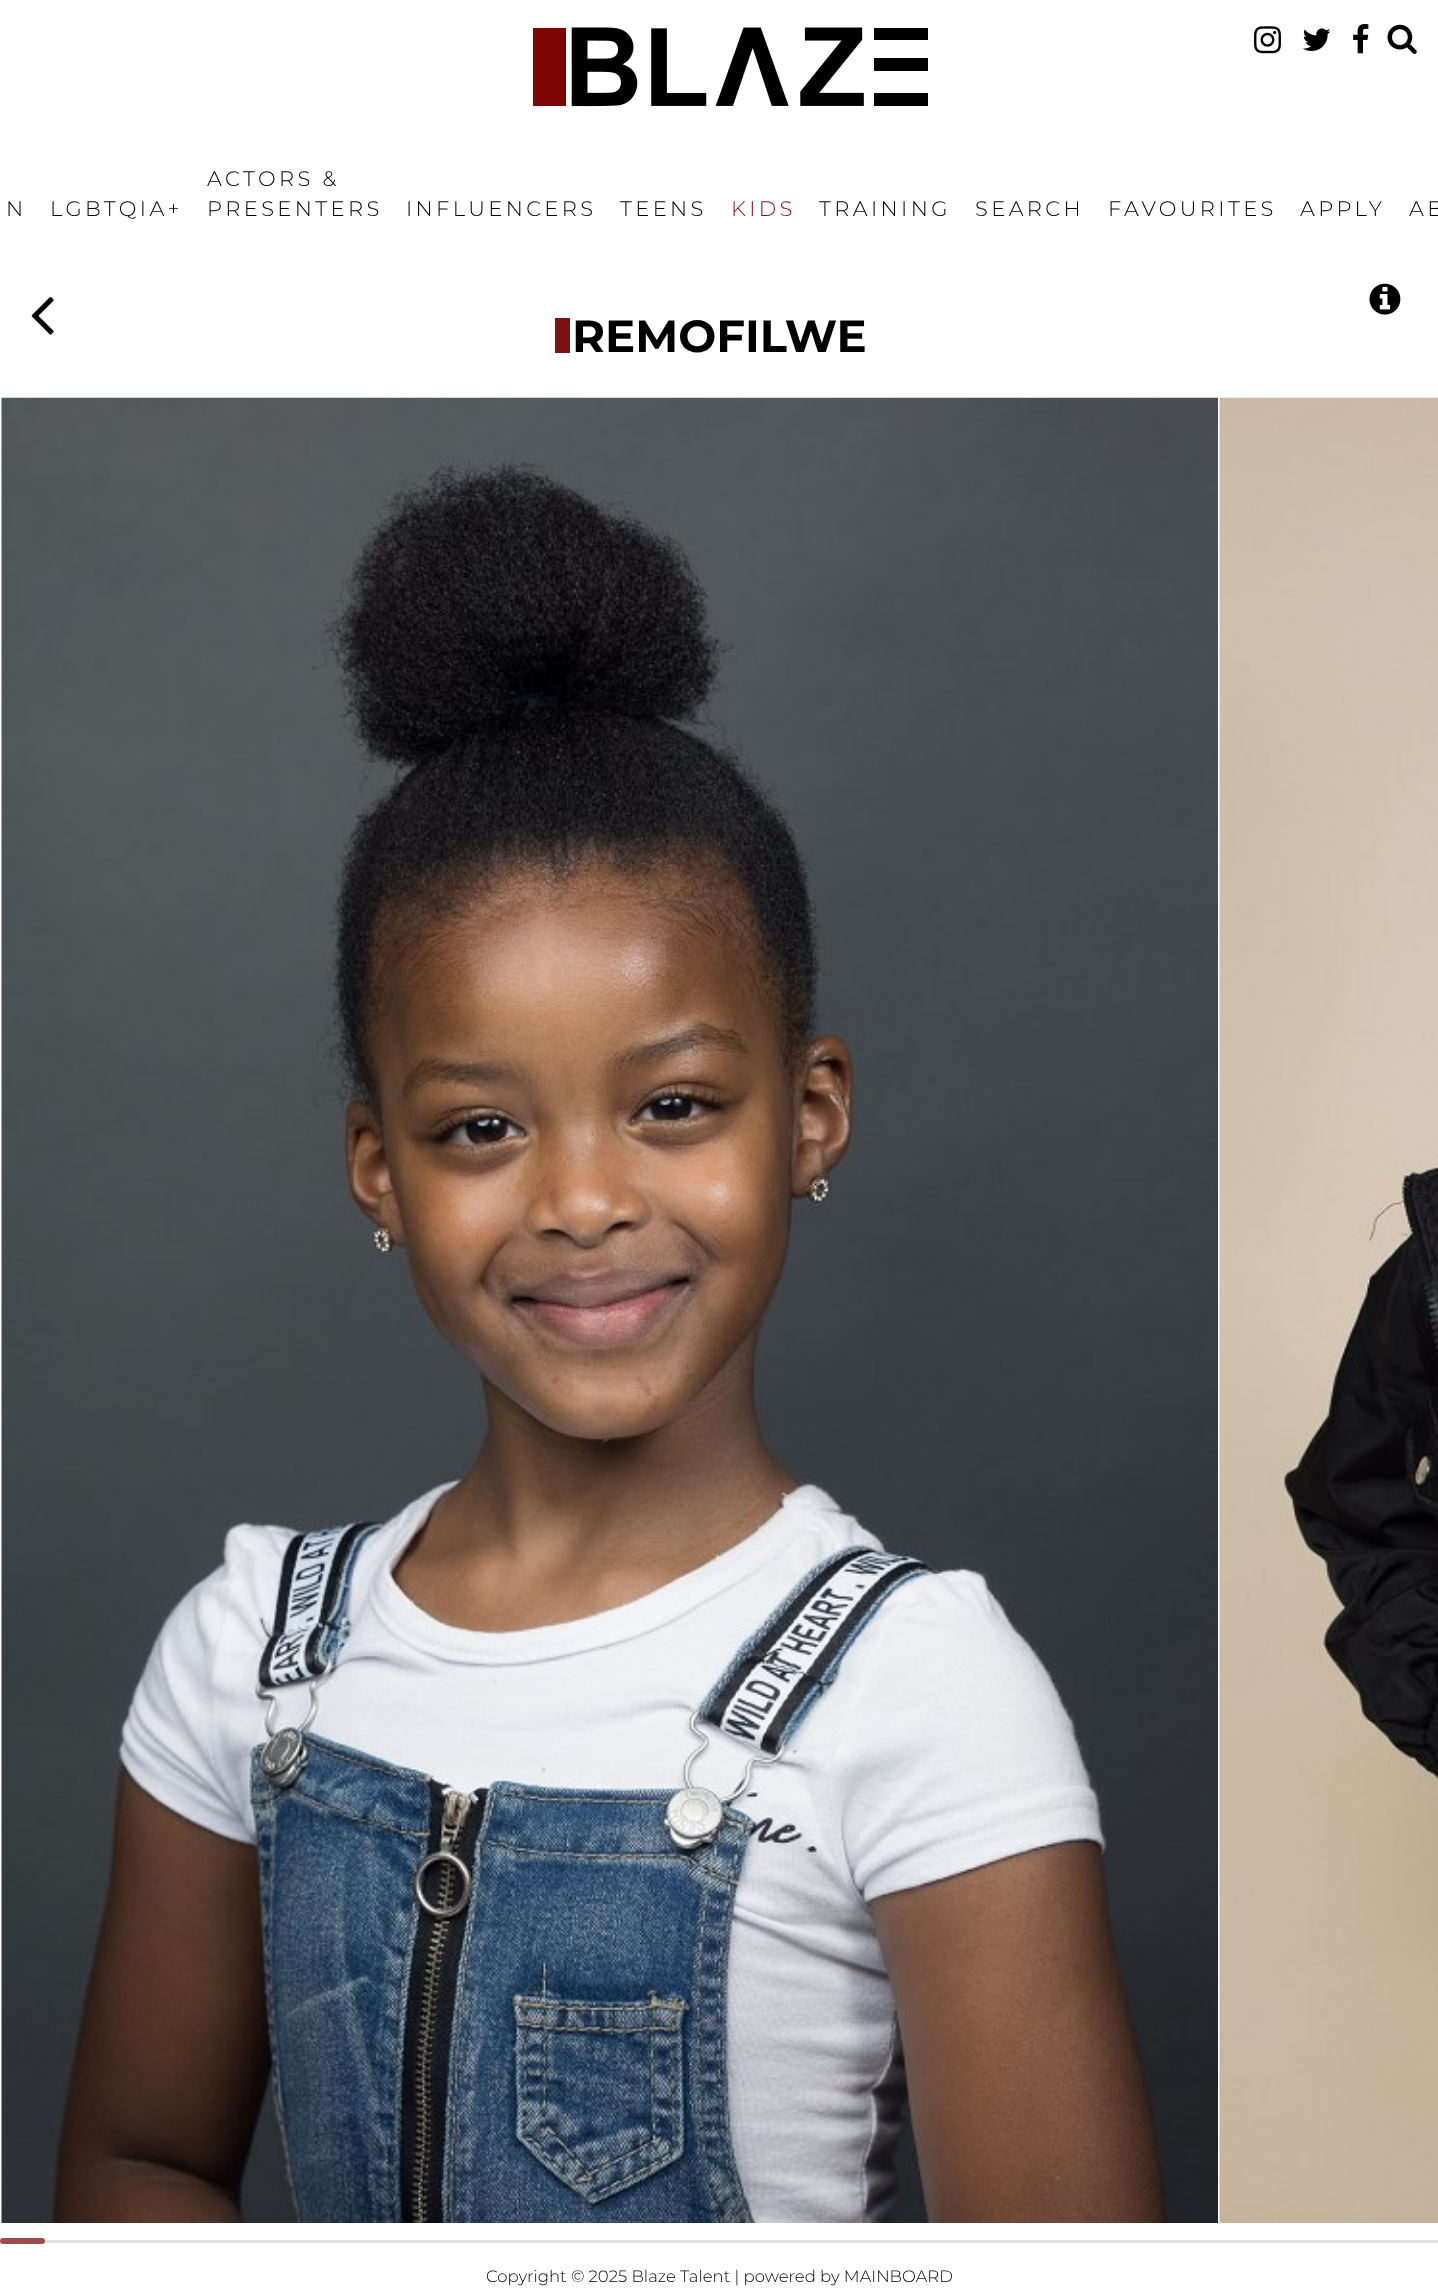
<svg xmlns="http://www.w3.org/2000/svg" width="1438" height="2290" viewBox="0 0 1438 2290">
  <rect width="100%" height="100%" fill="#ffffff"/>
  <image x="1254" y="26" width="27" height="28" href="img1.png"/>
  <image x="1303" y="28" width="28" height="23" href="img2.png"/>
  <image x="1353" y="24" width="16" height="30" href="img3.png"/>
  <image x="1387" y="24" width="30" height="30" href="img4.png"/>
  <image x="533" y="27" width="395" height="80" href="img5.png"/>
  <text x="6" y="216" font-family="Montserrat" font-size="21" font-weight="300" letter-spacing="3.4" fill="#000000">N</text>
  <text x="50" y="216" font-family="Montserrat" font-size="21" font-weight="300" letter-spacing="3.4" fill="#000000">LGBTQIA+</text>
  <text x="207" y="186" font-family="Montserrat" font-size="21" font-weight="300" letter-spacing="3.4" fill="#000000">ACTORS &amp;</text>
  <text x="207" y="216" font-family="Montserrat" font-size="21" font-weight="300" letter-spacing="3.4" fill="#000000">PRESENTERS</text>
  <text x="406" y="216" font-family="Montserrat" font-size="21" font-weight="300" letter-spacing="3.4" fill="#000000">INFLUENCERS</text>
  <text x="620" y="216" font-family="Montserrat" font-size="21" font-weight="300" letter-spacing="3.4" fill="#000000">TEENS</text>
  <text x="731" y="216" font-family="Montserrat" font-size="21" font-weight="300" letter-spacing="3.4" fill="#7c1214">KIDS</text>
  <text x="819" y="216" font-family="Montserrat" font-size="21" font-weight="300" letter-spacing="3.4" fill="#000000">TRAINING</text>
  <text x="975" y="216" font-family="Montserrat" font-size="21" font-weight="300" letter-spacing="3.4" fill="#000000">SEARCH</text>
  <text x="1108" y="216" font-family="Montserrat" font-size="21" font-weight="300" letter-spacing="3.4" fill="#000000">FAVOURITES</text>
  <text x="1300" y="216" font-family="Montserrat" font-size="21" font-weight="300" letter-spacing="3.4" fill="#000000">APPLY</text>
  <text x="1409" y="216" font-family="Montserrat" font-size="21" font-weight="300" letter-spacing="3.4" fill="#000000">AB</text>
  <image x="31" y="297" width="23" height="38" href="img6.png"/>
  <rect x="555" y="318" width="15" height="35" fill="#7c1214"/>
  <text x="572" y="352" font-family="Montserrat" font-size="45" font-weight="bold" fill="#000000">REMOFILWE</text>
  <image x="1369" y="283" width="32" height="32" href="img7.png"/>
  <image x="1" y="397" width="1217" height="1826" href="img8.png"/>
  <image x="1219" y="397" width="219" height="1826" href="img9.png"/>
  <rect x="0" y="2240" width="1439" height="3" rx="1.5" fill="#e3e3e3"/>
  <rect x="0" y="2238" width="45" height="6" rx="3" fill="#9d4d4f"/>
  <text x="486" y="2282" font-family="Montserrat" font-size="16.5" font-weight="300" fill="#000000">Copyright © 2025 Blaze Talent | powered by MAINBOARD</text>
</svg>
